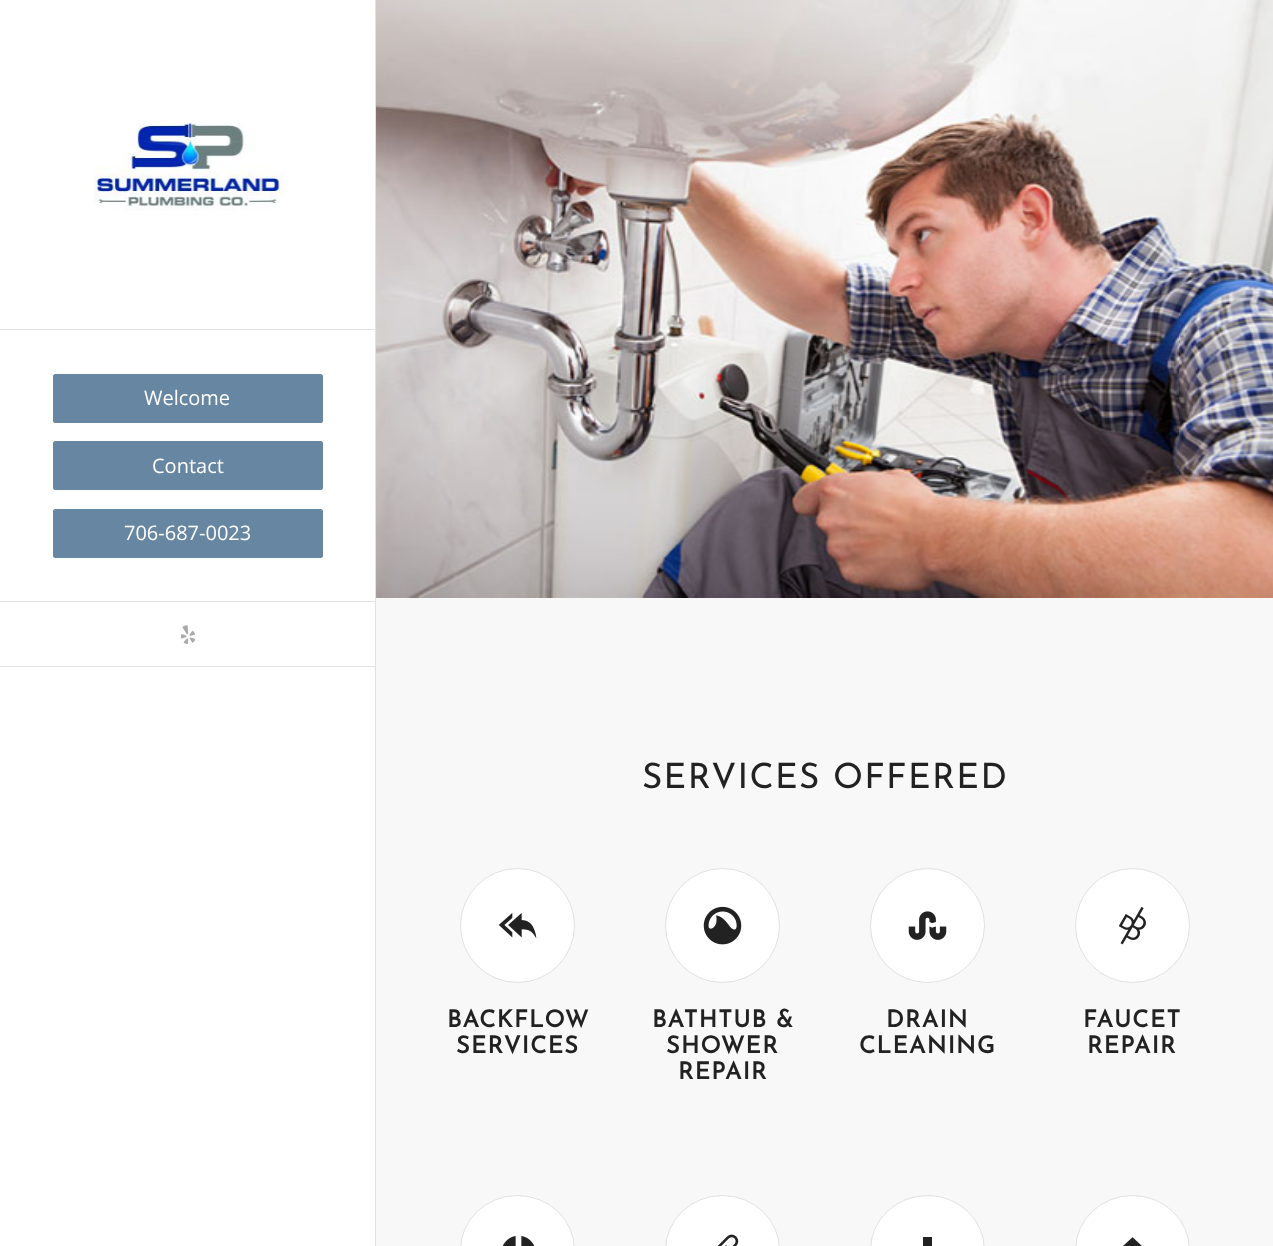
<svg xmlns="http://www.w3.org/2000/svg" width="1273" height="1246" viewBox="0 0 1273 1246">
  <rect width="100%" height="100%" fill="#ffffff"/>
  <rect x="0" y="666" width="375" height="1" fill="#e1e1e1"/>
  <rect x="0" y="329" width="375" height="1" fill="#e1e1e1"/>
  <image x="93" y="123" width="192" height="88" href="img1.png"/>
  <rect x="54.5" y="375.5" width="267" height="46" rx="1" fill="#6786a1" stroke="#6786a1" stroke-width="3"/>
  <text x="144" y="405" font-family="Open Sans" font-size="20" fill="#ffffff">Welcome</text>
  <rect x="54.5" y="442.5" width="267" height="46" rx="1" fill="#6786a1" stroke="#6786a1" stroke-width="3"/>
  <text x="152" y="473" font-family="Open Sans" font-size="20" fill="#ffffff">Contact</text>
  <rect x="54.5" y="510.5" width="267" height="46" rx="1" fill="#6786a1" stroke="#6786a1" stroke-width="3"/>
  <text x="124" y="540" font-family="Open Sans" font-size="20" fill="#ffffff">706-687-0023</text>
  <rect x="0" y="601" width="375" height="1" fill="#e1e1e1"/>
  <image x="180" y="625" width="16" height="19" href="img2.png"/>
  <rect x="375" y="0" width="1" height="1246" fill="#e1e1e1"/>
  <image x="376" y="0" width="897" height="598" href="img3.png"/>
  <rect x="376" y="598" width="897" height="648" fill="#f8f8f8"/>
  <text x="642" y="788" font-family="Josefin Sans" font-size="35" font-weight="100" letter-spacing="1.25" fill="#222222">SERVICES OFFERED</text>
  <circle cx="517.5" cy="925.5" r="57" fill="#ffffff" stroke="#e1e1e1"/>
  <image x="498" y="913" width="39" height="26" href="img4.png"/>
  <text x="447" y="1027" font-family="Josefin Sans" font-size="23.5" font-weight="bold" letter-spacing="1.25" fill="#222222">BACKFLOW</text>
  <text x="456" y="1053" font-family="Josefin Sans" font-size="23.5" font-weight="bold" letter-spacing="1.25" fill="#222222">SERVICES</text>
  <circle cx="722.5" cy="925.5" r="57" fill="#ffffff" stroke="#e1e1e1"/>
  <image x="703" y="906" width="39" height="39" href="img5.png"/>
  <text x="652" y="1027" font-family="Josefin Sans" font-size="23.5" font-weight="bold" letter-spacing="1.25" fill="#222222">BATHTUB &amp;</text>
  <text x="666" y="1053" font-family="Josefin Sans" font-size="23.5" font-weight="bold" letter-spacing="1.25" fill="#222222">SHOWER</text>
  <text x="678" y="1079" font-family="Josefin Sans" font-size="23.5" font-weight="bold" letter-spacing="1.25" fill="#222222">REPAIR</text>
  <circle cx="927.5" cy="925.5" r="57" fill="#ffffff" stroke="#e1e1e1"/>
  <image x="908" y="911" width="39" height="29" href="img6.png"/>
  <text x="886" y="1027" font-family="Josefin Sans" font-size="23.5" font-weight="bold" letter-spacing="1.25" fill="#222222">DRAIN</text>
  <text x="859" y="1053" font-family="Josefin Sans" font-size="23.5" font-weight="bold" letter-spacing="1.25" fill="#222222">CLEANING</text>
  <circle cx="1132.5" cy="925.5" r="57" fill="#ffffff" stroke="#e1e1e1"/>
  <image x="1118" y="907" width="28" height="38" href="img7.png"/>
  <text x="1083" y="1027" font-family="Josefin Sans" font-size="23.5" font-weight="bold" letter-spacing="1.25" fill="#222222">FAUCET</text>
  <text x="1087" y="1053" font-family="Josefin Sans" font-size="23.5" font-weight="bold" letter-spacing="1.25" fill="#222222">REPAIR</text>
  <rect x="460.5" y="1195.5" width="114" height="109" rx="57" fill="#ffffff" stroke="#e1e1e1"/>
  <image x="502" y="1236" width="33" height="10" href="img8.png"/>
  <rect x="665.5" y="1195.5" width="114" height="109" rx="57" fill="#ffffff" stroke="#e1e1e1"/>
  <image x="717" y="1234" width="22" height="12" href="img9.png"/>
  <rect x="870.5" y="1195.5" width="114" height="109" rx="57" fill="#ffffff" stroke="#e1e1e1"/>
  <rect x="923" y="1237" width="9" height="9" fill="#222222"/>
  <rect x="1075.5" y="1195.5" width="114" height="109" rx="57" fill="#ffffff" stroke="#e1e1e1"/>
  <image x="1123" y="1237" width="19" height="9" href="img10.png"/>
</svg>
